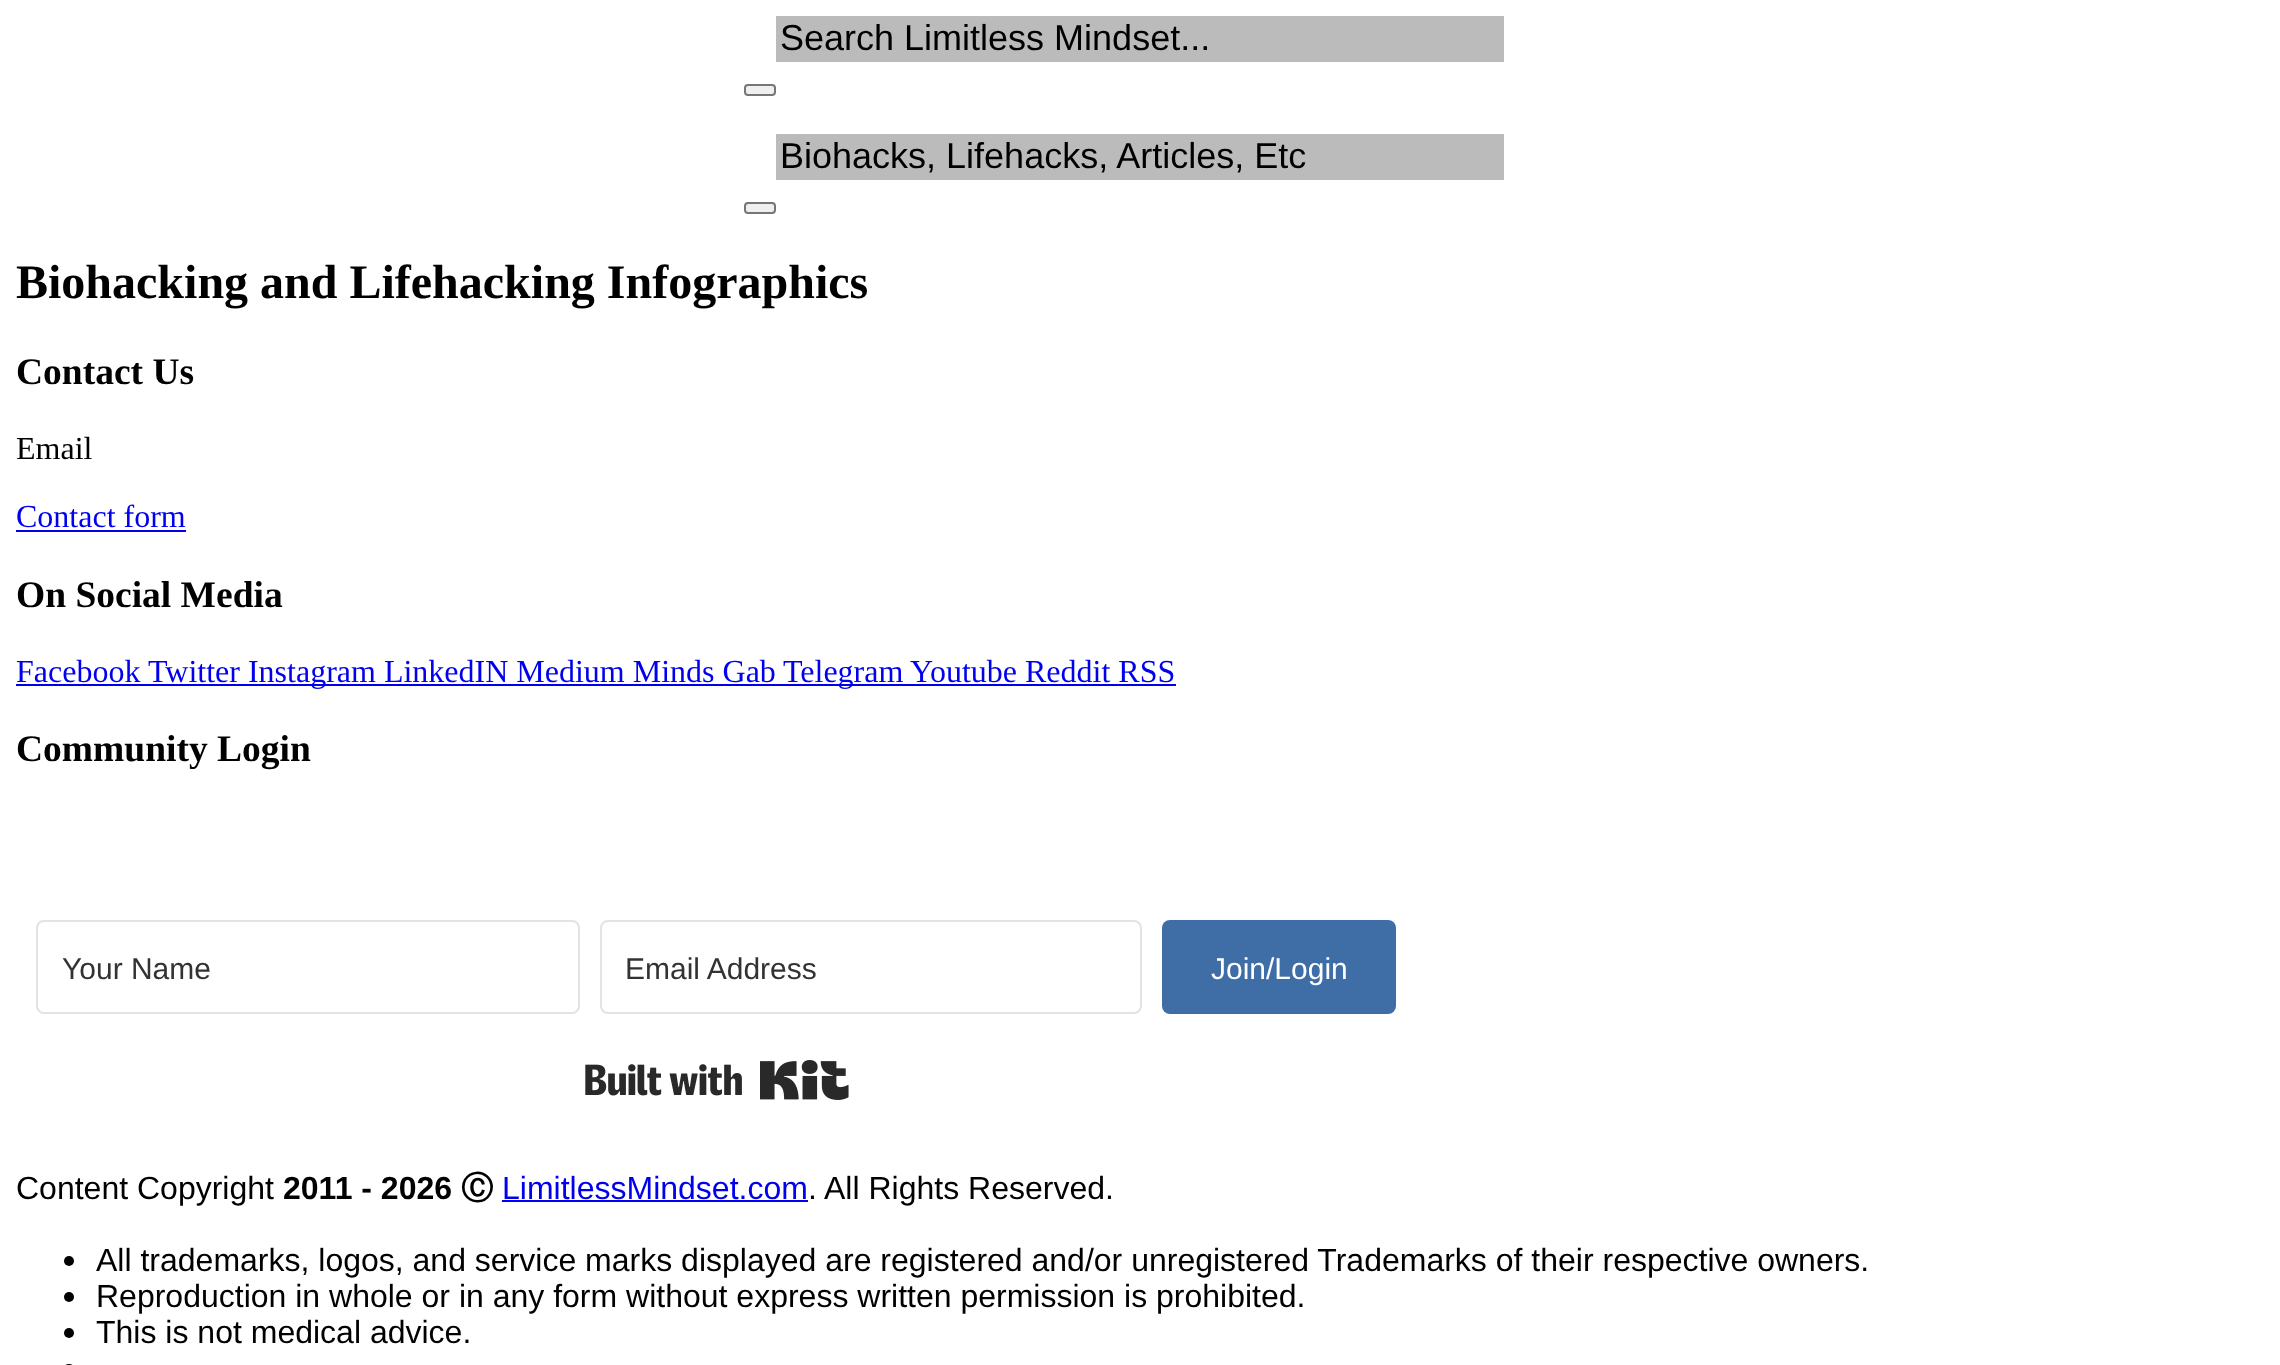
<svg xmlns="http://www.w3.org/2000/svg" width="2280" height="1365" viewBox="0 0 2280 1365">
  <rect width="100%" height="100%" fill="#ffffff"/>
  <rect x="776" y="16" width="728" height="46" fill="#bbbbbb"/>
  <text x="780" y="50" font-family="Liberation Sans" font-size="36" fill="#000000">Search Limitless Mindset...</text>
  <rect x="745" y="85" width="30" height="10" rx="3" fill="#efefef" stroke="#767676" stroke-width="2"/>
  <rect x="776" y="134" width="728" height="46" fill="#bbbbbb"/>
  <text x="780" y="168" font-family="Liberation Sans" font-size="36" fill="#000000">Biohacks, Lifehacks, Articles, Etc</text>
  <rect x="745" y="203" width="30" height="10" rx="3" fill="#efefef" stroke="#767676" stroke-width="2"/>
  <text x="16" y="298" font-family="Liberation Serif" font-size="48" font-weight="bold" fill="#000000">Biohacking and Lifehacking Infographics</text>
  <text x="16" y="384" font-family="Liberation Serif" font-size="37.5" font-weight="bold" fill="#000000">Contact Us</text>
  <text x="16" y="459" font-family="Liberation Serif" font-size="32" fill="#000000">Email</text>
  <text x="16" y="527" font-family="Liberation Serif" font-size="32" fill="#0000ee">Contact form</text>
  <rect x="16" y="530" width="170" height="2" fill="#0000ee"/>
  <text x="16" y="607" font-family="Liberation Serif" font-size="37.5" font-weight="bold" fill="#000000">On Social Media</text>
  <text x="16" y="682" font-family="Liberation Serif" font-size="32" fill="#0000ee">Facebook</text>
  <rect x="16" y="684" width="608" height="2" fill="#0000ee"/>
  <text x="148" y="682" font-family="Liberation Serif" font-size="32" fill="#0000ee">Twitter Instagram LinkedIN Medium Minds Gab</text>
  <rect x="624" y="684" width="552" height="2" fill="#0000ee"/>
  <text x="783" y="682" font-family="Liberation Serif" font-size="32" fill="#0000ee">Telegram</text>
  <text x="910" y="682" font-family="Liberation Serif" font-size="32" fill="#0000ee">Youtube Reddit RSS</text>
  <text x="16" y="761" font-family="Liberation Serif" font-size="37.5" font-weight="bold" fill="#000000">Community Login</text>
  <rect x="37" y="921" width="542" height="92" rx="7" fill="none" stroke="#e3e3e3" stroke-width="2"/>
  <text x="62" y="979" font-family="Liberation Sans" font-size="30" fill="#333333">Your Name</text>
  <rect x="601" y="921" width="540" height="92" rx="7" fill="none" stroke="#e3e3e3" stroke-width="2"/>
  <text x="625" y="979" font-family="Liberation Sans" font-size="30" fill="#333333">Email Address</text>
  <rect x="1162" y="920" width="234" height="94" rx="8" fill="#3f6da6"/>
  <text x="1211" y="979" font-family="Liberation Sans" font-size="30" fill="#ffffff">Join/Login</text>
  <image x="585" y="1060" width="264" height="40" href="img1.png"/>
  <text x="16" y="1199" font-family="Liberation Sans" font-size="32" fill="#000000">Content Copyright</text>
  <text x="283" y="1199" font-family="Liberation Sans" font-size="32" font-weight="bold" fill="#000000">2011 - 2026</text>
  <text x="461" y="1199" font-family="WenQuanYi Zen Hei" font-size="32" font-weight="bold" fill="#000000">Ⓒ</text>
  <text x="502" y="1199" font-family="Liberation Sans" font-size="32" fill="#0000ee">LimitlessMindset.com</text>
  <text x="808" y="1199" font-family="Liberation Sans" font-size="32" fill="#000000">. All Rights Reserved.</text>
  <rect x="502" y="1200" width="306" height="2" fill="#0000ee"/>
  <circle cx="69" cy="1261" r="5" fill="#000000"/>
  <text x="96" y="1271" font-family="Liberation Sans" font-size="32" fill="#000000">All trademarks, logos, and service marks displayed are registered and/or unregistered Trademarks of their respective owners.</text>
  <circle cx="69" cy="1297" r="5" fill="#000000"/>
  <text x="96" y="1307" font-family="Liberation Sans" font-size="32" fill="#000000">Reproduction in whole or in any form without express written permission is prohibited.</text>
  <circle cx="69" cy="1333" r="5" fill="#000000"/>
  <text x="96" y="1343" font-family="Liberation Sans" font-size="32" fill="#000000">This is not medical advice.</text>
  <rect x="64" y="1364" width="10" height="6" rx="5" fill="#000000"/>
</svg>
